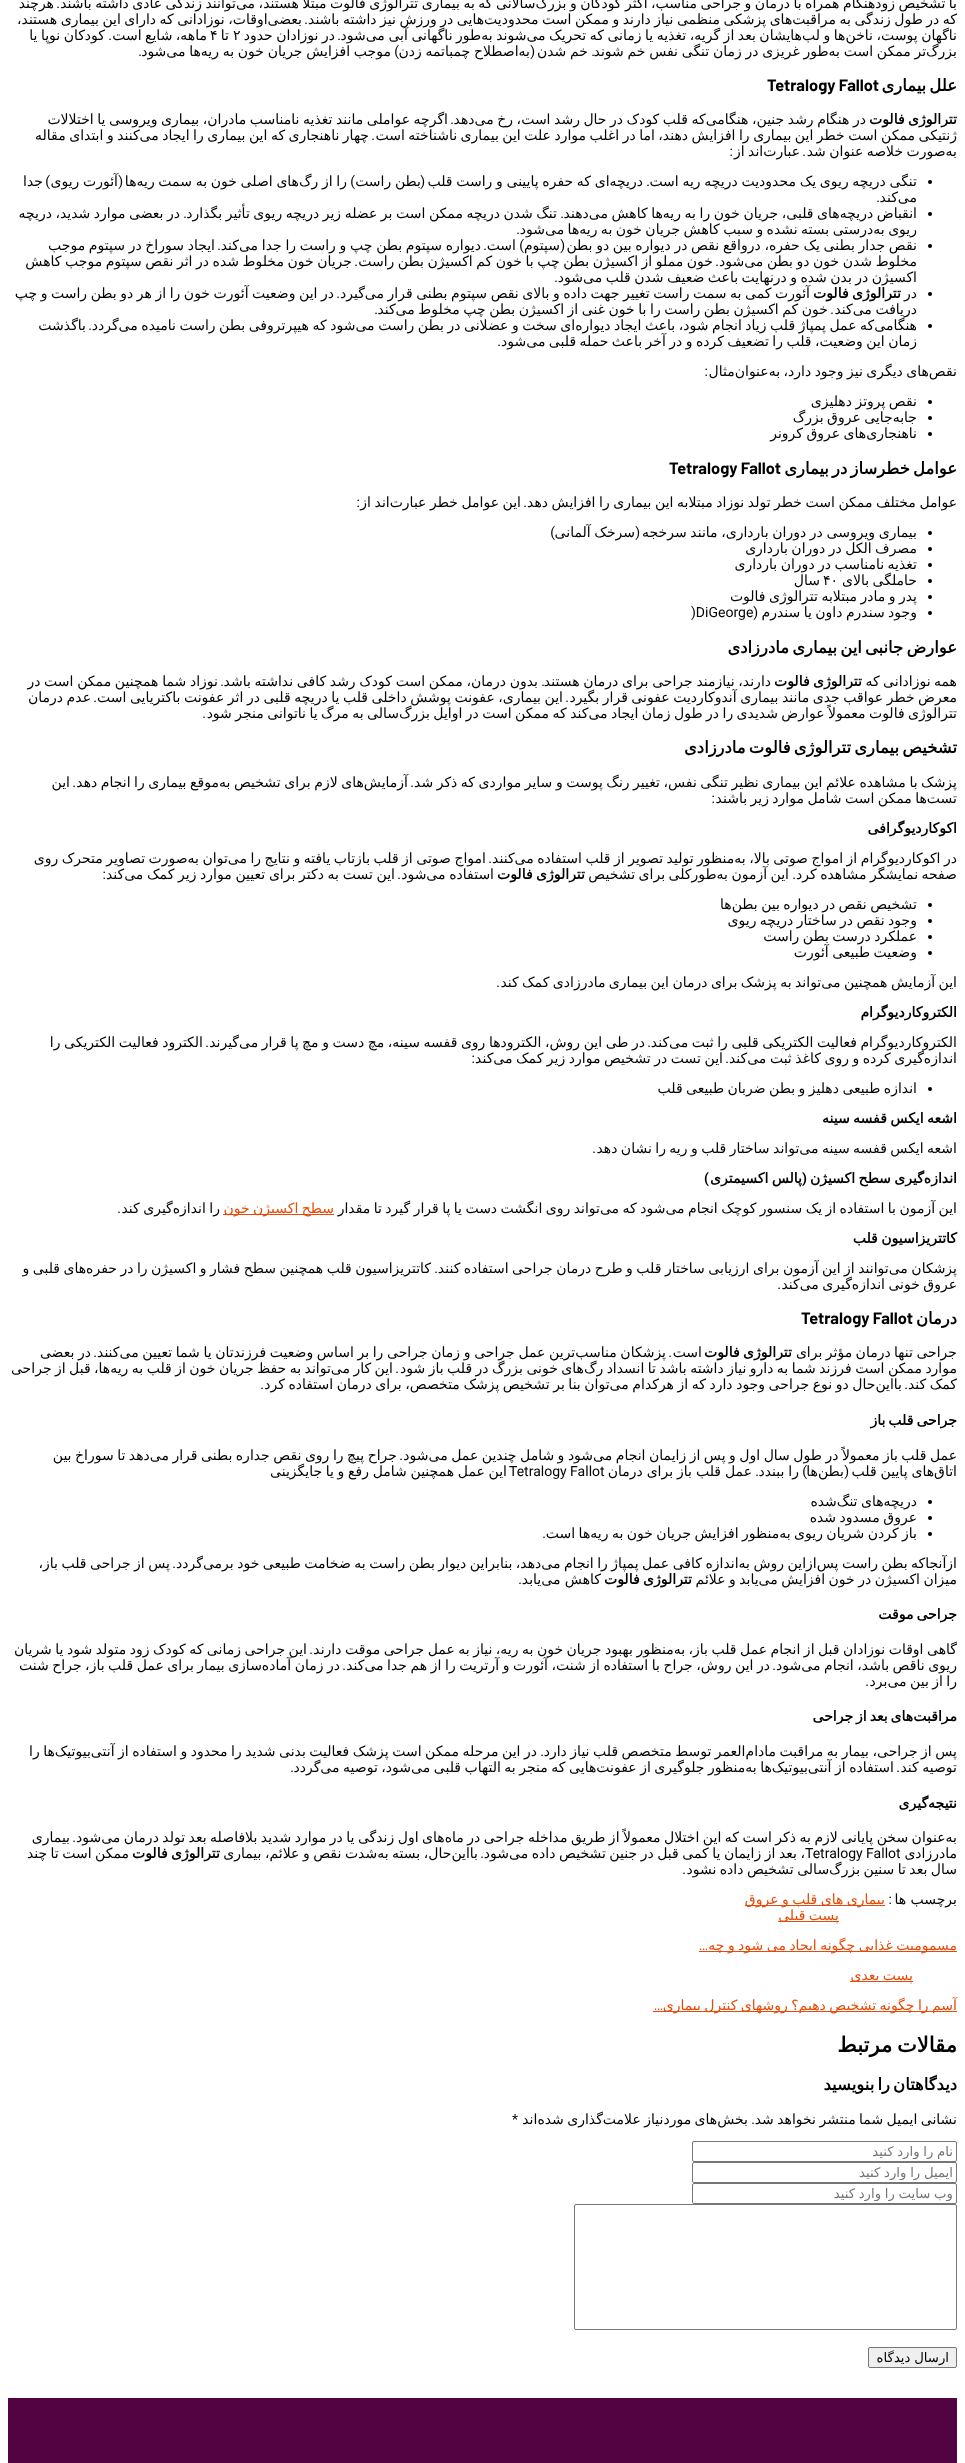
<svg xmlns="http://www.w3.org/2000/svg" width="965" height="2463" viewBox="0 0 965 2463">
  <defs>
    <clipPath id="clip1"><rect x="696" y="2144" width="257" height="15"/></clipPath>
    <clipPath id="clip2"><rect x="696" y="2165" width="257" height="15"/></clipPath>
    <clipPath id="clip3"><rect x="696" y="2186" width="257" height="15"/></clipPath>
  </defs>
  <rect width="100%" height="100%" fill="#ffffff"/>
  <text x="957" y="8" word-spacing="-0.95" font-family="DejaVu Sans" font-size="14" direction="rtl" fill="#000000">با تشخیص زودهنگام همراه با درمان و جراحی مناسب، اکثر کودکان و بزرگ‌سالانی که به بیماری تترالوژی فالوت مبتلا هستند، می‌توانند زندگی عادی داشته باشند</text>
  <text x="60" y="8" font-family="Roboto" font-size="14" direction="rtl" fill="#000000">.</text>
  <text x="54" y="8" font-family="DejaVu Sans" font-size="14" direction="rtl" fill="#000000">هرچند</text>
  <text x="957" y="24" word-spacing="-0.95" font-family="DejaVu Sans" font-size="14" direction="rtl" fill="#000000">که در طول زندگی به مراقبت‌های پزشکی منظمی نیاز دارند و ممکن است محدودیت‌هایی در ورزش نیز داشته باشند</text>
  <text x="308" y="24" font-family="Roboto" font-size="14" direction="rtl" fill="#000000">.</text>
  <text x="302" y="24" word-spacing="-0.95" font-family="DejaVu Sans" font-size="14" direction="rtl" fill="#000000">بعضی‌اوقات، نوزادانی که دارای این بیماری هستند،</text>
  <text x="957" y="40" word-spacing="-0.9" font-family="DejaVu Sans" font-size="14" direction="rtl" fill="#000000">ناگهان پوست، ناخن‌ها و لب‌هایشان بعد از گریه، تغذیه یا زمانی که تحریک می‌شوند به‌طور ناگهانی آبی می‌شود</text>
  <text x="341" y="40" font-family="Roboto" font-size="14" direction="rtl" fill="#000000">.</text>
  <text x="335" y="40" word-spacing="-0.9" font-family="DejaVu Sans" font-size="14" direction="rtl" fill="#000000">در نوزادان حدود</text>
  <text x="233" y="40" font-family="DejaVu Sans" font-size="14" fill="#000000">۲</text>
  <text x="229" y="40" font-family="DejaVu Sans" font-size="14" direction="rtl" fill="#000000">تا</text>
  <text x="210" y="40" font-family="DejaVu Sans" font-size="14" fill="#000000">۴</text>
  <text x="207" y="40" word-spacing="-1" font-family="DejaVu Sans" font-size="14" direction="rtl" fill="#000000">ماهه، شایع است</text>
  <text x="112" y="40" font-family="Roboto" font-size="14" direction="rtl" fill="#000000">.</text>
  <text x="105" y="40" word-spacing="-1" font-family="DejaVu Sans" font-size="14" direction="rtl" fill="#000000">کودکان نوپا یا</text>
  <text x="957" y="56" word-spacing="-0.75" font-family="DejaVu Sans" font-size="14" direction="rtl" fill="#000000">بزرگ‌تر ممکن است به‌طور غریزی در زمان تنگی نفس خم شوند</text>
  <text x="595" y="56" font-family="Roboto" font-size="14" direction="rtl" fill="#000000">.</text>
  <text x="588" y="56" word-spacing="-0.75" font-family="DejaVu Sans" font-size="14" direction="rtl" fill="#000000">خم شدن</text>
  <text x="535" y="56" font-family="Roboto" font-size="14" direction="rtl" fill="#000000">(</text>
  <text x="530" y="56" word-spacing="-0.75" font-family="DejaVu Sans" font-size="14" direction="rtl" fill="#000000">به‌اصطلاح چمباتمه زدن</text>
  <text x="399" y="56" font-family="Roboto" font-size="14" direction="rtl" fill="#000000">)</text>
  <text x="391" y="56" word-spacing="-0.75" font-family="DejaVu Sans" font-size="14" direction="rtl" fill="#000000">موجب افزایش جریان خون به ریه‌ها می‌شود</text>
  <text x="142" y="56" font-family="Roboto" font-size="14" direction="rtl" fill="#000000">.</text>
  <text x="957" y="91" word-spacing="-2" font-family="DejaVu Sans" font-size="16.4" font-weight="bold" direction="rtl" fill="#000000">علل بیماری</text>
  <text x="767" y="91" font-family="Barlow" font-size="16.4" font-weight="bold" fill="#000000">Tetralogy Fallot</text>
  <text x="957" y="124" word-spacing="-1" font-family="DejaVu Sans" font-size="14" font-weight="bold" direction="rtl" fill="#000000">تترالوژی فالوت</text>
  <text x="866" y="124" word-spacing="-0.9" font-family="DejaVu Sans" font-size="14" direction="rtl" fill="#000000">در هنگام رشد جنین، هنگامی‌که قلب کودک در حال رشد است، رخ می‌دهد</text>
  <text x="454" y="124" font-family="Roboto" font-size="14" direction="rtl" fill="#000000">.</text>
  <text x="448" y="124" word-spacing="-0.9" font-family="DejaVu Sans" font-size="14" direction="rtl" fill="#000000">اگرچه عواملی مانند تغذیه نامناسب مادران، بیماری ویروسی یا اختلالات</text>
  <text x="957" y="140" word-spacing="-0.95" font-family="DejaVu Sans" font-size="14" direction="rtl" fill="#000000">ژنتیکی ممکن است خطر این بیماری را افزایش دهند، اما در اغلب موارد علت این بیماری ناشناخته است</text>
  <text x="375" y="140" font-family="Roboto" font-size="14" direction="rtl" fill="#000000">.</text>
  <text x="369" y="140" word-spacing="-0.95" font-family="DejaVu Sans" font-size="14" direction="rtl" fill="#000000">چهار ناهنجاری که این بیماری را ایجاد می‌کنند و ابتدای مقاله</text>
  <text x="957" y="156" word-spacing="-1" font-family="DejaVu Sans" font-size="14" direction="rtl" fill="#000000">به‌صورت خلاصه عنوان شد</text>
  <text x="806" y="156" font-family="Roboto" font-size="14" direction="rtl" fill="#000000">.</text>
  <text x="733" y="156" font-family="Roboto" font-size="14" direction="rtl" fill="#000000">:</text>
  <text x="800" y="156" word-spacing="-1" font-family="DejaVu Sans" font-size="14" direction="rtl" fill="#000000">عبارت‌اند از</text>
  <circle cx="930" cy="182" r="2" fill="#000000"/>
  <text x="917" y="186" word-spacing="-0.75" font-family="DejaVu Sans" font-size="14" direction="rtl" fill="#000000">تنگی دریچه ریوی یک محدودیت دریچه ریه است</text>
  <text x="643" y="186" word-spacing="-0.75" font-family="DejaVu Sans" font-size="14" direction="rtl" fill="#000000">دریچه‌ای که حفره پایینی و راست قلب</text>
  <text x="425" y="186" font-family="Roboto" font-size="14" direction="rtl" fill="#000000">(</text>
  <text x="421" y="186" word-spacing="-0.75" font-family="DejaVu Sans" font-size="14" direction="rtl" fill="#000000">بطن راست</text>
  <text x="355" y="186" font-family="Roboto" font-size="14" direction="rtl" fill="#000000">)</text>
  <text x="347" y="186" word-spacing="-0.75" font-family="DejaVu Sans" font-size="14" direction="rtl" fill="#000000">را از رگ‌های اصلی خون به سمت ریه‌ها</text>
  <text x="118" y="186" word-spacing="-0.75" font-family="DejaVu Sans" font-size="14" direction="rtl" fill="#000000">آئورت ریوی</text>
  <text x="123" y="186" font-family="Roboto" font-size="14" direction="rtl" fill="#000000">(</text>
  <text x="50" y="186" font-family="Roboto" font-size="14" direction="rtl" fill="#000000">)</text>
  <text x="43" y="186" font-family="DejaVu Sans" font-size="14" direction="rtl" fill="#000000">جدا</text>
  <text x="650" y="186" font-family="Roboto" font-size="14" direction="rtl" fill="#000000">.</text>
  <text x="917" y="202" font-family="DejaVu Sans" font-size="14" direction="rtl" fill="#000000">می‌کند</text>
  <text x="880" y="202" font-family="Roboto" font-size="14" direction="rtl" fill="#000000">.</text>
  <circle cx="930" cy="214" r="2" fill="#000000"/>
  <text x="917" y="218" word-spacing="-0.9" font-family="DejaVu Sans" font-size="14" direction="rtl" fill="#000000">انقباض دریچه‌های قلبی، جریان خون را به ریه‌ها کاهش می‌دهند</text>
  <text x="557" y="218" word-spacing="-0.9" font-family="DejaVu Sans" font-size="14" direction="rtl" fill="#000000">تنگ شدن دریچه ممکن است بر عضله زیر دریچه ریوی تأثیر بگذارد</text>
  <text x="180" y="218" word-spacing="-0.9" font-family="DejaVu Sans" font-size="14" direction="rtl" fill="#000000">در بعضی موارد شدید، دریچه</text>
  <text x="564" y="218" font-family="Roboto" font-size="14" direction="rtl" fill="#000000">.</text>
  <text x="187" y="218" font-family="Roboto" font-size="14" direction="rtl" fill="#000000">.</text>
  <text x="917" y="234" word-spacing="-1" font-family="DejaVu Sans" font-size="14" direction="rtl" fill="#000000">ریوی به‌درستی بسته نشده و سبب کاهش جریان خون به ریه‌ها می‌شود</text>
  <text x="520" y="234" font-family="Roboto" font-size="14" direction="rtl" fill="#000000">.</text>
  <circle cx="930" cy="246" r="2" fill="#000000"/>
  <text x="917" y="250" word-spacing="-0.75" font-family="DejaVu Sans" font-size="14" direction="rtl" fill="#000000">نقص جدار بطنی یک حفره، درواقع نقص در دیواره بین دو بطن</text>
  <text x="565" y="250" font-family="Roboto" font-size="14" direction="rtl" fill="#000000">(</text>
  <text x="560" y="250" font-family="DejaVu Sans" font-size="14" direction="rtl" fill="#000000">سپتوم</text>
  <text x="524" y="250" font-family="Roboto" font-size="14" direction="rtl" fill="#000000">)</text>
  <text x="516" y="250" font-family="DejaVu Sans" font-size="14" direction="rtl" fill="#000000">است</text>
  <text x="481" y="250" word-spacing="-0.75" font-family="DejaVu Sans" font-size="14" direction="rtl" fill="#000000">دیواره سپتوم بطن چپ و راست را جدا می‌کند</text>
  <text x="215" y="250" word-spacing="-0.75" font-family="DejaVu Sans" font-size="14" direction="rtl" fill="#000000">ایجاد سوراخ در سپتوم موجب</text>
  <text x="487" y="250" font-family="Roboto" font-size="14" direction="rtl" fill="#000000">.</text>
  <text x="221" y="250" font-family="Roboto" font-size="14" direction="rtl" fill="#000000">.</text>
  <text x="917" y="266" word-spacing="-0.9" font-family="DejaVu Sans" font-size="14" direction="rtl" fill="#000000">مخلوط شدن خون دو بطن می‌شود</text>
  <text x="719" y="266" font-family="Roboto" font-size="14" direction="rtl" fill="#000000">.</text>
  <text x="713" y="266" word-spacing="-0.9" font-family="DejaVu Sans" font-size="14" direction="rtl" fill="#000000">خون مملو از اکسیژن بطن چپ با خون کم اکسیژن بطن راست</text>
  <text x="358" y="266" font-family="Roboto" font-size="14" direction="rtl" fill="#000000">.</text>
  <text x="352" y="266" word-spacing="-0.9" font-family="DejaVu Sans" font-size="14" direction="rtl" fill="#000000">جریان خون مخلوط شده در اثر نقص سپتوم موجب کاهش</text>
  <text x="917" y="282" word-spacing="-1" font-family="DejaVu Sans" font-size="14" direction="rtl" fill="#000000">اکسیژن در بدن شده و درنهایت باعث ضعیف شدن قلب می‌شود</text>
  <text x="558" y="282" font-family="Roboto" font-size="14" direction="rtl" fill="#000000">.</text>
  <circle cx="930" cy="294" r="2" fill="#000000"/>
  <text x="917" y="298" font-family="DejaVu Sans" font-size="14" direction="rtl" fill="#000000">در</text>
  <text x="901" y="298" word-spacing="-1" font-family="DejaVu Sans" font-size="14" font-weight="bold" direction="rtl" fill="#000000">تترالوژی فالوت</text>
  <text x="810" y="298" word-spacing="-0.9" font-family="DejaVu Sans" font-size="14" direction="rtl" fill="#000000">آئورت کمی به سمت راست تغییر جهت داده و بالای نقص سپتوم بطنی قرار می‌گیرد</text>
  <text x="334" y="298" word-spacing="-0.9" font-family="DejaVu Sans" font-size="14" direction="rtl" fill="#000000">در این وضعیت آئورت خون را از هر دو بطن راست و چپ</text>
  <text x="340" y="298" font-family="Roboto" font-size="14" direction="rtl" fill="#000000">.</text>
  <text x="917" y="314" word-spacing="-0.9" font-family="DejaVu Sans" font-size="14" direction="rtl" fill="#000000">دریافت می‌کند</text>
  <text x="834" y="314" font-family="Roboto" font-size="14" direction="rtl" fill="#000000">.</text>
  <text x="828" y="314" word-spacing="-0.9" font-family="DejaVu Sans" font-size="14" direction="rtl" fill="#000000">خون کم اکسیژن بطن راست را با خون غنی از اکسیژن بطن چپ مخلوط می‌کند</text>
  <text x="378" y="314" font-family="Roboto" font-size="14" direction="rtl" fill="#000000">.</text>
  <circle cx="930" cy="326" r="2" fill="#000000"/>
  <text x="917" y="330" word-spacing="-0.9" font-family="DejaVu Sans" font-size="14" direction="rtl" fill="#000000">هنگامی‌که عمل پمپاژ قلب زیاد انجام شود، باعث ایجاد دیواره‌ای سخت و عضلانی در بطن راست می‌شود که هیپرتروفی بطن راست نامیده می‌گردد</text>
  <text x="86" y="330" font-family="DejaVu Sans" font-size="14" direction="rtl" fill="#000000">باگذشت</text>
  <text x="92" y="330" font-family="Roboto" font-size="14" direction="rtl" fill="#000000">.</text>
  <text x="917" y="346" word-spacing="-1" font-family="DejaVu Sans" font-size="14" direction="rtl" fill="#000000">زمان این وضعیت، قلب را تضعیف کرده و در آخر باعث حمله قلبی می‌شود</text>
  <text x="501" y="346" font-family="Roboto" font-size="14" direction="rtl" fill="#000000">.</text>
  <text x="957" y="376" word-spacing="-1" font-family="DejaVu Sans" font-size="14" direction="rtl" fill="#000000">نقص‌های دیگری نیز وجود دارد، به‌عنوان‌مثال</text>
  <text x="708" y="376" font-family="Roboto" font-size="14" direction="rtl" fill="#000000">:</text>
  <circle cx="930" cy="402" r="2" fill="#000000"/>
  <text x="917" y="406" word-spacing="-1" font-family="DejaVu Sans" font-size="14" direction="rtl" fill="#000000">نقص پروتز دهلیزی</text>
  <circle cx="930" cy="418" r="2" fill="#000000"/>
  <text x="917" y="422" word-spacing="-1" font-family="DejaVu Sans" font-size="14" direction="rtl" fill="#000000">جابه‌جایی عروق بزرگ</text>
  <circle cx="930" cy="434" r="2" fill="#000000"/>
  <text x="917" y="438" word-spacing="-1" font-family="DejaVu Sans" font-size="14" direction="rtl" fill="#000000">ناهنجاری‌های عروق کرونر</text>
  <text x="957" y="474" word-spacing="-2" font-family="DejaVu Sans" font-size="16.4" font-weight="bold" direction="rtl" fill="#000000">عوامل خطرساز در بیماری</text>
  <text x="669" y="474" font-family="Barlow" font-size="16.4" font-weight="bold" fill="#000000">Tetralogy Fallot</text>
  <text x="957" y="507" word-spacing="-0.9" font-family="DejaVu Sans" font-size="14" direction="rtl" fill="#000000">عوامل مختلف ممکن است خطر تولد نوزاد مبتلابه این بیماری را افزایش دهد</text>
  <text x="360" y="507" font-family="Roboto" font-size="14" direction="rtl" fill="#000000">:</text>
  <text x="521" y="507" word-spacing="-0.9" font-family="DejaVu Sans" font-size="14" direction="rtl" fill="#000000">این عوامل خطر عبارت‌اند از</text>
  <text x="527" y="507" font-family="Roboto" font-size="14" direction="rtl" fill="#000000">.</text>
  <circle cx="930" cy="533" r="2" fill="#000000"/>
  <text x="917" y="537" word-spacing="-0.75" font-family="DejaVu Sans" font-size="14" direction="rtl" fill="#000000">بیماری ویروسی در دوران بارداری، مانند سرخجه</text>
  <text x="640" y="537" font-family="Roboto" font-size="14" direction="rtl" fill="#000000">(</text>
  <text x="635" y="537" word-spacing="-0.75" font-family="DejaVu Sans" font-size="14" direction="rtl" fill="#000000">سرخک آلمانی</text>
  <text x="555" y="537" font-family="Roboto" font-size="14" direction="rtl" fill="#000000">)</text>
  <circle cx="930" cy="549" r="2" fill="#000000"/>
  <text x="917" y="553" word-spacing="-1" font-family="DejaVu Sans" font-size="14" direction="rtl" fill="#000000">مصرف الکل در دوران بارداری</text>
  <circle cx="930" cy="565" r="2" fill="#000000"/>
  <text x="917" y="569" word-spacing="-1" font-family="DejaVu Sans" font-size="14" direction="rtl" fill="#000000">تغذیه نامناسب در دوران بارداری</text>
  <circle cx="930" cy="581" r="2" fill="#000000"/>
  <text x="917" y="585" word-spacing="-1" font-family="DejaVu Sans" font-size="14" direction="rtl" fill="#000000">حاملگی بالای</text>
  <text x="823" y="585" font-family="DejaVu Sans" font-size="14" fill="#000000">۴۰</text>
  <text x="820" y="585" font-family="DejaVu Sans" font-size="14" direction="rtl" fill="#000000">سال</text>
  <circle cx="930" cy="597" r="2" fill="#000000"/>
  <text x="917" y="601" word-spacing="-1" font-family="DejaVu Sans" font-size="14" direction="rtl" fill="#000000">پدر و مادر مبتلابه تترالوژی فالوت</text>
  <circle cx="930" cy="613" r="2" fill="#000000"/>
  <text x="917" y="617" word-spacing="-1" font-family="DejaVu Sans" font-size="14" direction="rtl" fill="#000000">وجود سندرم داون یا سندرم</text>
  <text x="758" y="617" font-family="Roboto" font-size="14" direction="rtl" fill="#000000">(</text>
  <text x="691" y="617" font-family="Roboto" font-size="14" fill="#000000">)DiGeorge</text>
  <text x="957" y="653" word-spacing="-2" font-family="DejaVu Sans" font-size="16.4" font-weight="bold" direction="rtl" fill="#000000">عوارض جانبی این بیماری مادرزادی</text>
  <text x="957" y="686" word-spacing="-1" font-family="DejaVu Sans" font-size="14" direction="rtl" fill="#000000">همه نوزادانی که</text>
  <text x="862" y="686" word-spacing="-1" font-family="DejaVu Sans" font-size="14" font-weight="bold" direction="rtl" fill="#000000">تترالوژی فالوت</text>
  <text x="771" y="686" word-spacing="-0.75" font-family="DejaVu Sans" font-size="14" direction="rtl" fill="#000000">دارند، نیازمند جراحی برای درمان هستند</text>
  <text x="545" y="686" font-family="Roboto" font-size="14" direction="rtl" fill="#000000">.</text>
  <text x="538" y="686" word-spacing="-0.75" font-family="DejaVu Sans" font-size="14" direction="rtl" fill="#000000">بدون درمان، ممکن است کودک رشد کافی نداشته باشد</text>
  <text x="224" y="686" font-family="Roboto" font-size="14" direction="rtl" fill="#000000">.</text>
  <text x="218" y="686" word-spacing="-0.75" font-family="DejaVu Sans" font-size="14" direction="rtl" fill="#000000">نوزاد شما همچنین ممکن است در</text>
  <text x="957" y="702" word-spacing="-0.9" font-family="DejaVu Sans" font-size="14" direction="rtl" fill="#000000">معرض خطر عواقب جدی مانند بیماری آندوکاردیت عفونی قرار بگیرد</text>
  <text x="569" y="702" font-family="Roboto" font-size="14" direction="rtl" fill="#000000">.</text>
  <text x="563" y="702" word-spacing="-0.9" font-family="DejaVu Sans" font-size="14" direction="rtl" fill="#000000">این بیماری، عفونت پوشش داخلی قلب یا دریچه قلبی در اثر عفونت باکتریایی است</text>
  <text x="97" y="702" font-family="Roboto" font-size="14" direction="rtl" fill="#000000">.</text>
  <text x="91" y="702" word-spacing="-0.9" font-family="DejaVu Sans" font-size="14" direction="rtl" fill="#000000">عدم درمان</text>
  <text x="957" y="718" word-spacing="-1" font-family="DejaVu Sans" font-size="14" direction="rtl" fill="#000000">تترالوژی فالوت معمولاً عوارض شدیدی را در طول زمان ایجاد می‌کند که ممکن است در اوایل بزرگ‌سالی به مرگ یا ناتوانی منجر شود</text>
  <text x="206" y="718" font-family="Roboto" font-size="14" direction="rtl" fill="#000000">.</text>
  <text x="957" y="753" word-spacing="-2" font-family="DejaVu Sans" font-size="16.4" font-weight="bold" direction="rtl" fill="#000000">تشخیص بیماری تترالوژی فالوت مادرزادی</text>
  <text x="957" y="787" word-spacing="-0.9" font-family="DejaVu Sans" font-size="14" direction="rtl" fill="#000000">پزشک با مشاهده علائم این بیماری نظیر تنگی نفس، تغییر رنگ پوست و سایر مواردی که ذکر شد</text>
  <text x="414" y="787" font-family="Roboto" font-size="14" direction="rtl" fill="#000000">.</text>
  <text x="408" y="787" word-spacing="-0.9" font-family="DejaVu Sans" font-size="14" direction="rtl" fill="#000000">آزمایش‌های لازم برای تشخیص به‌موقع بیماری را انجام دهد</text>
  <text x="76" y="787" font-family="Roboto" font-size="14" direction="rtl" fill="#000000">.</text>
  <text x="70" y="787" font-family="DejaVu Sans" font-size="14" direction="rtl" fill="#000000">این</text>
  <text x="957" y="803" word-spacing="-1" font-family="DejaVu Sans" font-size="14" direction="rtl" fill="#000000">تست‌ها ممکن است شامل موارد زیر باشند</text>
  <text x="715" y="803" font-family="Roboto" font-size="14" direction="rtl" fill="#000000">:</text>
  <text x="957" y="833" font-family="DejaVu Sans" font-size="14" font-weight="bold" direction="rtl" fill="#000000">اکوکاردیوگرافی</text>
  <text x="957" y="863" word-spacing="-0.95" font-family="DejaVu Sans" font-size="14" direction="rtl" fill="#000000">در اکوکاردیوگرام از امواج صوتی بالا، به‌منظور تولید تصویر از قلب استفاده می‌کنند</text>
  <text x="492" y="863" font-family="Roboto" font-size="14" direction="rtl" fill="#000000">.</text>
  <text x="486" y="863" word-spacing="-0.95" font-family="DejaVu Sans" font-size="14" direction="rtl" fill="#000000">امواج صوتی از قلب بازتاب یافته و نتایج را می‌توان به‌صورت تصاویر متحرک روی</text>
  <text x="957" y="879" word-spacing="-1" font-family="DejaVu Sans" font-size="14" direction="rtl" fill="#000000">صفحه نمایشگر مشاهده کرد</text>
  <text x="796" y="879" font-family="Roboto" font-size="14" direction="rtl" fill="#000000">.</text>
  <text x="789" y="879" word-spacing="-1" font-family="DejaVu Sans" font-size="14" direction="rtl" fill="#000000">این آزمون به‌طورکلی برای تشخیص</text>
  <text x="585" y="879" word-spacing="-1" font-family="DejaVu Sans" font-size="14" font-weight="bold" direction="rtl" fill="#000000">تترالوژی فالوت</text>
  <text x="494" y="879" word-spacing="-0.75" font-family="DejaVu Sans" font-size="14" direction="rtl" fill="#000000">استفاده می‌شود</text>
  <text x="401" y="879" font-family="Roboto" font-size="14" direction="rtl" fill="#000000">.</text>
  <text x="395" y="879" word-spacing="-0.75" font-family="DejaVu Sans" font-size="14" direction="rtl" fill="#000000">این تست به دکتر برای تعیین موارد زیر کمک می‌کند</text>
  <text x="106" y="879" font-family="Roboto" font-size="14" direction="rtl" fill="#000000">:</text>
  <circle cx="930" cy="905" r="2" fill="#000000"/>
  <text x="917" y="909" word-spacing="-1" font-family="DejaVu Sans" font-size="14" direction="rtl" fill="#000000">تشخیص نقص در دیواره بین بطن‌ها</text>
  <circle cx="930" cy="921" r="2" fill="#000000"/>
  <text x="917" y="925" word-spacing="-1" font-family="DejaVu Sans" font-size="14" direction="rtl" fill="#000000">وجود نقص در ساختار دریچه ریوی</text>
  <circle cx="930" cy="937" r="2" fill="#000000"/>
  <text x="917" y="941" word-spacing="-1" font-family="DejaVu Sans" font-size="14" direction="rtl" fill="#000000">عملکرد درست بطن راست</text>
  <circle cx="930" cy="953" r="2" fill="#000000"/>
  <text x="917" y="957" word-spacing="-1" font-family="DejaVu Sans" font-size="14" direction="rtl" fill="#000000">وضعیت طبیعی آئورت</text>
  <text x="957" y="987" word-spacing="-1" font-family="DejaVu Sans" font-size="14" direction="rtl" fill="#000000">این آزمایش همچنین می‌تواند به پزشک برای درمان این بیماری مادرزادی کمک کند</text>
  <text x="500" y="987" font-family="Roboto" font-size="14" direction="rtl" fill="#000000">.</text>
  <text x="957" y="1017" font-family="DejaVu Sans" font-size="14" font-weight="bold" direction="rtl" fill="#000000">الکتروکاردیوگرام</text>
  <text x="957" y="1047" word-spacing="-0.9" font-family="DejaVu Sans" font-size="14" direction="rtl" fill="#000000">الکتروکاردیوگرام فعالیت الکتریکی قلبی را ثبت می‌کند</text>
  <text x="651" y="1047" font-family="Roboto" font-size="14" direction="rtl" fill="#000000">.</text>
  <text x="645" y="1047" word-spacing="-0.9" font-family="DejaVu Sans" font-size="14" direction="rtl" fill="#000000">در طی این روش، الکترودها روی قفسه سینه، مچ دست و مچ پا قرار می‌گیرند</text>
  <text x="209" y="1047" font-family="Roboto" font-size="14" direction="rtl" fill="#000000">.</text>
  <text x="203" y="1047" word-spacing="-0.9" font-family="DejaVu Sans" font-size="14" direction="rtl" fill="#000000">الکترود فعالیت الکتریکی را</text>
  <text x="957" y="1063" word-spacing="-0.9" font-family="DejaVu Sans" font-size="14" direction="rtl" fill="#000000">اندازه‌گیری کرده و روی کاغذ ثبت می‌کند</text>
  <text x="729" y="1063" font-family="Roboto" font-size="14" direction="rtl" fill="#000000">.</text>
  <text x="723" y="1063" word-spacing="-0.9" font-family="DejaVu Sans" font-size="14" direction="rtl" fill="#000000">این تست در تشخیص موارد زیر کمک می‌کند</text>
  <text x="475" y="1063" font-family="Roboto" font-size="14" direction="rtl" fill="#000000">:</text>
  <circle cx="930" cy="1089" r="2" fill="#000000"/>
  <text x="917" y="1093" word-spacing="-1" font-family="DejaVu Sans" font-size="14" direction="rtl" fill="#000000">اندازه طبیعی دهلیز و بطن ضربان طبیعی قلب</text>
  <text x="957" y="1123" word-spacing="-1" font-family="DejaVu Sans" font-size="14" font-weight="bold" direction="rtl" fill="#000000">اشعه ایکس قفسه سینه</text>
  <text x="957" y="1153" word-spacing="-1" font-family="DejaVu Sans" font-size="14" direction="rtl" fill="#000000">اشعه ایکس قفسه سینه می‌تواند ساختار قلب و ریه را نشان دهد</text>
  <text x="596" y="1153" font-family="Roboto" font-size="14" direction="rtl" fill="#000000">.</text>
  <text x="957" y="1183" word-spacing="-1" font-family="DejaVu Sans" font-size="14" font-weight="bold" direction="rtl" fill="#000000">اندازه‌گیری سطح اکسیژن</text>
  <text x="807" y="1183" font-family="Roboto" font-size="14" font-weight="bold" direction="rtl" fill="#000000">(</text>
  <text x="802" y="1183" word-spacing="-1" font-family="DejaVu Sans" font-size="14" font-weight="bold" direction="rtl" fill="#000000">پالس اکسیمتری</text>
  <text x="709" y="1183" font-family="Roboto" font-size="14" font-weight="bold" direction="rtl" fill="#000000">)</text>
  <text x="957" y="1213" word-spacing="-1" font-family="DejaVu Sans" font-size="14" direction="rtl" fill="#000000">این آزمون با استفاده از یک سنسور کوچک انجام می‌شود که می‌تواند روی انگشت دست یا پا قرار گیرد تا مقدار</text>
  <rect x="223" y="1214" width="111" height="1" fill="#e74907"/>
  <text x="334" y="1213" word-spacing="-1" font-family="DejaVu Sans" font-size="14" direction="rtl" fill="#e74907">سطح اکسیژن خون</text>
  <text x="220" y="1213" word-spacing="-1" font-family="DejaVu Sans" font-size="14" direction="rtl" fill="#000000">را اندازه‌گیری کند</text>
  <text x="121" y="1213" font-family="Roboto" font-size="14" direction="rtl" fill="#000000">.</text>
  <text x="957" y="1243" word-spacing="-1" font-family="DejaVu Sans" font-size="14" font-weight="bold" direction="rtl" fill="#000000">کاتتریزاسیون قلب</text>
  <text x="957" y="1273" word-spacing="-0.95" font-family="DejaVu Sans" font-size="14" direction="rtl" fill="#000000">پزشکان می‌توانند از این آزمون برای ارزیابی ساختار قلب و طرح درمان جراحی استفاده کنند</text>
  <text x="438" y="1273" font-family="Roboto" font-size="14" direction="rtl" fill="#000000">.</text>
  <text x="431" y="1273" word-spacing="-0.95" font-family="DejaVu Sans" font-size="14" direction="rtl" fill="#000000">کاتتریزاسیون قلب همچنین سطح فشار و اکسیژن را در حفره‌های قلبی و</text>
  <text x="957" y="1289" word-spacing="-1" font-family="DejaVu Sans" font-size="14" direction="rtl" fill="#000000">عروق خونی اندازه‌گیری می‌کند</text>
  <text x="781" y="1289" font-family="Roboto" font-size="14" direction="rtl" fill="#000000">.</text>
  <text x="957" y="1324" font-family="DejaVu Sans" font-size="16.4" font-weight="bold" direction="rtl" fill="#000000">درمان</text>
  <text x="801" y="1324" font-family="Barlow" font-size="16.4" font-weight="bold" fill="#000000">Tetralogy Fallot</text>
  <text x="957" y="1357" word-spacing="-1" font-family="DejaVu Sans" font-size="14" direction="rtl" fill="#000000">جراحی تنها درمان مؤثر برای</text>
  <text x="792" y="1357" word-spacing="-1" font-family="DejaVu Sans" font-size="14" font-weight="bold" direction="rtl" fill="#000000">تترالوژی فالوت</text>
  <text x="702" y="1357" font-family="DejaVu Sans" font-size="14" direction="rtl" fill="#000000">است</text>
  <text x="672" y="1357" font-family="Roboto" font-size="14" direction="rtl" fill="#000000">.</text>
  <text x="666" y="1357" word-spacing="-0.8" font-family="DejaVu Sans" font-size="14" direction="rtl" fill="#000000">پزشکان مناسب‌ترین عمل جراحی و زمان جراحی را بر اساس وضعیت فرزندتان یا شما تعیین می‌کنند</text>
  <text x="97" y="1357" font-family="Roboto" font-size="14" direction="rtl" fill="#000000">.</text>
  <text x="91" y="1357" word-spacing="-0.8" font-family="DejaVu Sans" font-size="14" direction="rtl" fill="#000000">در بعضی</text>
  <text x="957" y="1373" word-spacing="-1" font-family="DejaVu Sans" font-size="14" direction="rtl" fill="#000000">موارد ممکن است فرزند شما به دارو نیاز داشته باشد تا انسداد رگ‌های خونی بزرگ در قلب باز شود</text>
  <text x="399" y="1373" font-family="Roboto" font-size="14" direction="rtl" fill="#000000">.</text>
  <text x="393" y="1373" word-spacing="-1" font-family="DejaVu Sans" font-size="14" direction="rtl" fill="#000000">این کار می‌تواند به حفظ جریان خون از قلب به ریه‌ها، قبل از جراحی</text>
  <text x="957" y="1389" word-spacing="-0.9" font-family="DejaVu Sans" font-size="14" direction="rtl" fill="#000000">کمک کند</text>
  <text x="908" y="1389" font-family="Roboto" font-size="14" direction="rtl" fill="#000000">.</text>
  <text x="902" y="1389" word-spacing="-0.9" font-family="DejaVu Sans" font-size="14" direction="rtl" fill="#000000">بااین‌حال دو نوع جراحی وجود دارد که از هرکدام می‌توان بنا بر تشخیص پزشک متخصص، برای درمان استفاده کرد</text>
  <text x="264" y="1389" font-family="Roboto" font-size="14" direction="rtl" fill="#000000">.</text>
  <text x="957" y="1425" word-spacing="-1.5" font-family="DejaVu Sans" font-size="14" font-weight="bold" direction="rtl" fill="#000000">جراحی قلب باز</text>
  <text x="957" y="1460" word-spacing="-0.95" font-family="DejaVu Sans" font-size="14" direction="rtl" fill="#000000">عمل قلب باز معمولاً در طول سال اول و پس از زایمان انجام می‌شود و شامل چندین عمل می‌شود</text>
  <text x="403" y="1460" font-family="Roboto" font-size="14" direction="rtl" fill="#000000">.</text>
  <text x="397" y="1460" word-spacing="-0.95" font-family="DejaVu Sans" font-size="14" direction="rtl" fill="#000000">جراح پیچ را روی نقص جداره بطنی قرار می‌دهد تا سوراخ بین</text>
  <text x="957" y="1476" word-spacing="-0.5" font-family="DejaVu Sans" font-size="14" direction="rtl" fill="#000000">اتاق‌های پایین قلب</text>
  <text x="849" y="1476" font-family="Roboto" font-size="14" direction="rtl" fill="#000000">(</text>
  <text x="844" y="1476" font-family="DejaVu Sans" font-size="14" direction="rtl" fill="#000000">بطن‌ها</text>
  <text x="807" y="1476" font-family="Roboto" font-size="14" direction="rtl" fill="#000000">)</text>
  <text x="799" y="1476" word-spacing="-0.5" font-family="DejaVu Sans" font-size="14" direction="rtl" fill="#000000">را ببندد</text>
  <text x="759" y="1476" font-family="Roboto" font-size="14" direction="rtl" fill="#000000">.</text>
  <text x="752" y="1476" word-spacing="-0.5" font-family="DejaVu Sans" font-size="14" direction="rtl" fill="#000000">عمل قلب باز برای درمان</text>
  <text x="509" y="1476" font-family="Roboto" font-size="14" fill="#000000">Tetralogy Fallot</text>
  <text x="507" y="1476" word-spacing="-0.75" font-family="DejaVu Sans" font-size="14" direction="rtl" fill="#000000">این عمل همچنین شامل رفع و یا جایگزینی</text>
  <circle cx="930" cy="1502" r="2" fill="#000000"/>
  <text x="917" y="1506" word-spacing="-1" font-family="DejaVu Sans" font-size="14" direction="rtl" fill="#000000">دریچه‌های تنگ‌شده</text>
  <circle cx="930" cy="1518" r="2" fill="#000000"/>
  <text x="917" y="1522" word-spacing="-1" font-family="DejaVu Sans" font-size="14" direction="rtl" fill="#000000">عروق مسدود شده</text>
  <circle cx="930" cy="1534" r="2" fill="#000000"/>
  <text x="917" y="1538" word-spacing="-1" font-family="DejaVu Sans" font-size="14" direction="rtl" fill="#000000">باز کردن شریان ریوی به‌منظور افزایش جریان خون به ریه‌ها است</text>
  <text x="546" y="1538" font-family="Roboto" font-size="14" direction="rtl" fill="#000000">.</text>
  <text x="957" y="1568" word-spacing="-0.95" font-family="DejaVu Sans" font-size="14" direction="rtl" fill="#000000">ازآنجاکه بطن راست پس‌ازاین روش به‌اندازه کافی عمل پمپاژ را انجام می‌دهد، بنابراین دیوار بطن راست به ضخامت طبیعی خود برمی‌گردد</text>
  <text x="176" y="1568" font-family="Roboto" font-size="14" direction="rtl" fill="#000000">.</text>
  <text x="170" y="1568" word-spacing="-0.95" font-family="DejaVu Sans" font-size="14" direction="rtl" fill="#000000">پس از جراحی قلب باز،</text>
  <text x="957" y="1584" word-spacing="-1" font-family="DejaVu Sans" font-size="14" direction="rtl" fill="#000000">میزان اکسیژن در خون افزایش می‌یابد و علائم</text>
  <text x="692" y="1584" word-spacing="-1" font-family="DejaVu Sans" font-size="14" font-weight="bold" direction="rtl" fill="#000000">تترالوژی فالوت</text>
  <text x="601" y="1584" font-family="DejaVu Sans" font-size="14" direction="rtl" fill="#000000">کاهش می‌یابد</text>
  <text x="522" y="1584" font-family="Roboto" font-size="14" direction="rtl" fill="#000000">.</text>
  <text x="957" y="1619" word-spacing="-1.5" font-family="DejaVu Sans" font-size="14" font-weight="bold" direction="rtl" fill="#000000">جراحی موقت</text>
  <text x="957" y="1654" word-spacing="-0.95" font-family="DejaVu Sans" font-size="14" direction="rtl" fill="#000000">گاهی اوقات نوزادان قبل از انجام عمل قلب باز، به‌منظور بهبود جریان خون به ریه، نیاز به عمل جراحی موقت دارند</text>
  <text x="313" y="1654" font-family="Roboto" font-size="14" direction="rtl" fill="#000000">.</text>
  <text x="307" y="1654" word-spacing="-0.95" font-family="DejaVu Sans" font-size="14" direction="rtl" fill="#000000">این جراحی زمانی که کودک زود متولد شود یا شریان</text>
  <text x="957" y="1670" word-spacing="-0.9" font-family="DejaVu Sans" font-size="14" direction="rtl" fill="#000000">ریوی ناقص باشد، انجام می‌شود</text>
  <text x="776" y="1670" font-family="Roboto" font-size="14" direction="rtl" fill="#000000">.</text>
  <text x="770" y="1670" word-spacing="-0.9" font-family="DejaVu Sans" font-size="14" direction="rtl" fill="#000000">در این روش، جراح با استفاده از شنت، آئورت و آرتریت را از هم جدا می‌کند</text>
  <text x="346" y="1670" font-family="Roboto" font-size="14" direction="rtl" fill="#000000">.</text>
  <text x="340" y="1670" word-spacing="-0.9" font-family="DejaVu Sans" font-size="14" direction="rtl" fill="#000000">در زمان آماده‌سازی بیمار برای عمل قلب باز، جراح شنت</text>
  <text x="957" y="1686" word-spacing="-1" font-family="DejaVu Sans" font-size="14" direction="rtl" fill="#000000">را از بین می‌برد</text>
  <text x="869" y="1686" font-family="Roboto" font-size="14" direction="rtl" fill="#000000">.</text>
  <text x="957" y="1721" word-spacing="-1.5" font-family="DejaVu Sans" font-size="14" font-weight="bold" direction="rtl" fill="#000000">مراقبت‌های بعد از جراحی</text>
  <text x="957" y="1756" word-spacing="-0.95" font-family="DejaVu Sans" font-size="14" direction="rtl" fill="#000000">پس از جراحی، بیمار به مراقبت مادام‌العمر توسط متخصص قلب نیاز دارد</text>
  <text x="544" y="1756" font-family="Roboto" font-size="14" direction="rtl" fill="#000000">.</text>
  <text x="537" y="1756" word-spacing="-0.95" font-family="DejaVu Sans" font-size="14" direction="rtl" fill="#000000">در این مرحله ممکن است پزشک فعالیت بدنی شدید را محدود و استفاده از آنتی‌بیوتیک‌ها را</text>
  <text x="957" y="1772" word-spacing="-0.9" font-family="DejaVu Sans" font-size="14" direction="rtl" fill="#000000">توصیه کند</text>
  <text x="900" y="1772" font-family="Roboto" font-size="14" direction="rtl" fill="#000000">.</text>
  <text x="894" y="1772" word-spacing="-0.9" font-family="DejaVu Sans" font-size="14" direction="rtl" fill="#000000">استفاده از آنتی‌بیوتیک‌ها به‌منظور جلوگیری از عفونت‌هایی که منجر به التهاب قلبی می‌شود، توصیه می‌گردد</text>
  <text x="294" y="1772" font-family="Roboto" font-size="14" direction="rtl" fill="#000000">.</text>
  <text x="957" y="1808" font-family="DejaVu Sans" font-size="14" font-weight="bold" direction="rtl" fill="#000000">نتیجه‌گیری</text>
  <text x="957" y="1842" word-spacing="-0.95" font-family="DejaVu Sans" font-size="14" direction="rtl" fill="#000000">به‌عنوان سخن پایانی لازم به ذکر است که این اختلال معمولاً از طریق مداخله جراحی در ماه‌های اول زندگی یا در موارد شدید بلافاصله بعد تولد درمان می‌شود</text>
  <text x="76" y="1842" font-family="Roboto" font-size="14" direction="rtl" fill="#000000">.</text>
  <text x="70" y="1842" font-family="DejaVu Sans" font-size="14" direction="rtl" fill="#000000">بیماری</text>
  <text x="957" y="1858" font-family="DejaVu Sans" font-size="14" direction="rtl" fill="#000000">مادرزادی</text>
  <text x="805" y="1858" font-family="Roboto" font-size="14" fill="#000000">Tetralogy Fallot</text>
  <text x="805" y="1858" word-spacing="-0.9" font-family="DejaVu Sans" font-size="14" direction="rtl" fill="#000000">، بعد از زایمان یا کمی قبل در جنین تشخیص داده می‌شود</text>
  <text x="484" y="1858" font-family="Roboto" font-size="14" direction="rtl" fill="#000000">.</text>
  <text x="478" y="1858" word-spacing="-0.9" font-family="DejaVu Sans" font-size="14" direction="rtl" fill="#000000">بااین‌حال، بسته به‌شدت نقص و علائم، بیماری</text>
  <text x="220" y="1858" word-spacing="-1" font-family="DejaVu Sans" font-size="14" font-weight="bold" direction="rtl" fill="#000000">تترالوژی فالوت</text>
  <text x="129" y="1858" word-spacing="-1" font-family="DejaVu Sans" font-size="14" direction="rtl" fill="#000000">ممکن است تا چند</text>
  <text x="957" y="1874" word-spacing="-1" font-family="DejaVu Sans" font-size="14" direction="rtl" fill="#000000">سال بعد تا سنین بزرگ‌سالی تشخیص داده نشود</text>
  <text x="686" y="1874" font-family="Roboto" font-size="14" direction="rtl" fill="#000000">.</text>
  <text x="957" y="1904" font-family="DejaVu Sans" font-size="14" direction="rtl" fill="#000000">برچسب ها</text>
  <text x="892" y="1904" font-family="Roboto" font-size="14" direction="rtl" fill="#000000">:</text>
  <rect x="745" y="1905" width="140" height="1" fill="#e74907"/>
  <text x="885" y="1904" word-spacing="-1" font-family="DejaVu Sans" font-size="14" direction="rtl" fill="#e74907">بیماری های قلب و عروق</text>
  <rect x="778" y="1921" width="61" height="1" fill="#e74907"/>
  <text x="839" y="1920" word-spacing="-1" font-family="DejaVu Sans" font-size="14" direction="rtl" fill="#e74907">پست قبلی</text>
  <rect x="699" y="1951" width="258" height="1" fill="#e74907"/>
  <text x="957" y="1950" word-spacing="-1" font-family="DejaVu Sans" font-size="14" direction="rtl" fill="#e74907">مسمومیت غذایی چگونه ایجاد می شود و چه</text>
  <text x="708" y="1950" font-family="Roboto" font-size="14" direction="rtl" fill="#e74907">…</text>
  <rect x="850" y="1981" width="63" height="1" fill="#e74907"/>
  <text x="913" y="1980" word-spacing="-1" font-family="DejaVu Sans" font-size="14" direction="rtl" fill="#e74907">پست بعدی</text>
  <rect x="653" y="2011" width="304" height="1" fill="#e74907"/>
  <text x="957" y="2010" word-spacing="-1" font-family="DejaVu Sans" font-size="14" direction="rtl" fill="#e74907">آسم را چگونه تشخیص دهیم؟ روشهای کنترل بیماری</text>
  <text x="663" y="2010" font-family="Roboto" font-size="14" direction="rtl" fill="#e74907">…</text>
  <text x="957" y="2052" word-spacing="-2" font-family="DejaVu Sans" font-size="21" font-weight="bold" direction="rtl" fill="#000000">مقالات مرتبط</text>
  <text x="957" y="2090" word-spacing="-2" font-family="DejaVu Sans" font-size="16.4" font-weight="bold" direction="rtl" fill="#000000">دیدگاهتان را بنویسید</text>
  <text x="957" y="2124" word-spacing="-1" font-family="DejaVu Sans" font-size="14" direction="rtl" fill="#000000">نشانی ایمیل شما منتشر نخواهد شد</text>
  <text x="748" y="2124" word-spacing="-1" font-family="DejaVu Sans" font-size="14" direction="rtl" fill="#000000">بخش‌های موردنیاز علامت‌گذاری شده‌اند</text>
  <text x="512" y="2124" font-family="Roboto" font-size="14" fill="#000000">*</text>
  <text x="755" y="2124" font-family="Roboto" font-size="14" direction="rtl" fill="#000000">.</text>
  <rect x="692.5" y="2141.5" width="264" height="20" rx="1.5" fill="none" stroke="#767676"/>
  <g clip-path="url(#clip1)">
    <text x="953" y="2156" word-spacing="-0.5" font-family="DejaVu Sans" font-size="13.25" direction="rtl" fill="#757575">نام را وارد کنید</text>
  </g>
  <rect x="692.5" y="2162.5" width="264" height="20" rx="1.5" fill="none" stroke="#767676"/>
  <g clip-path="url(#clip2)">
    <text x="953" y="2177" word-spacing="-0.5" font-family="DejaVu Sans" font-size="13.25" direction="rtl" fill="#757575">ایمیل را وارد کنید</text>
  </g>
  <rect x="692.5" y="2183.5" width="264" height="20" rx="1.5" fill="none" stroke="#767676"/>
  <g clip-path="url(#clip3)">
    <text x="953" y="2198" word-spacing="-0.5" font-family="DejaVu Sans" font-size="13.25" direction="rtl" fill="#757575">وب سایت را وارد کنید</text>
  </g>
  <rect x="574.5" y="2204.5" width="382" height="125" rx="1.5" fill="none" stroke="#767676"/>
  <rect x="868.5" y="2347.5" width="88" height="20" rx="1.5" fill="#efefef" stroke="#767676"/>
  <text x="949" y="2362" word-spacing="-0.5" font-family="DejaVu Sans" font-size="13.25" direction="rtl" fill="#000000">ارسال دیدگاه</text>
  <rect x="8" y="2398" width="949" height="65" fill="#530342"/>
</svg>
